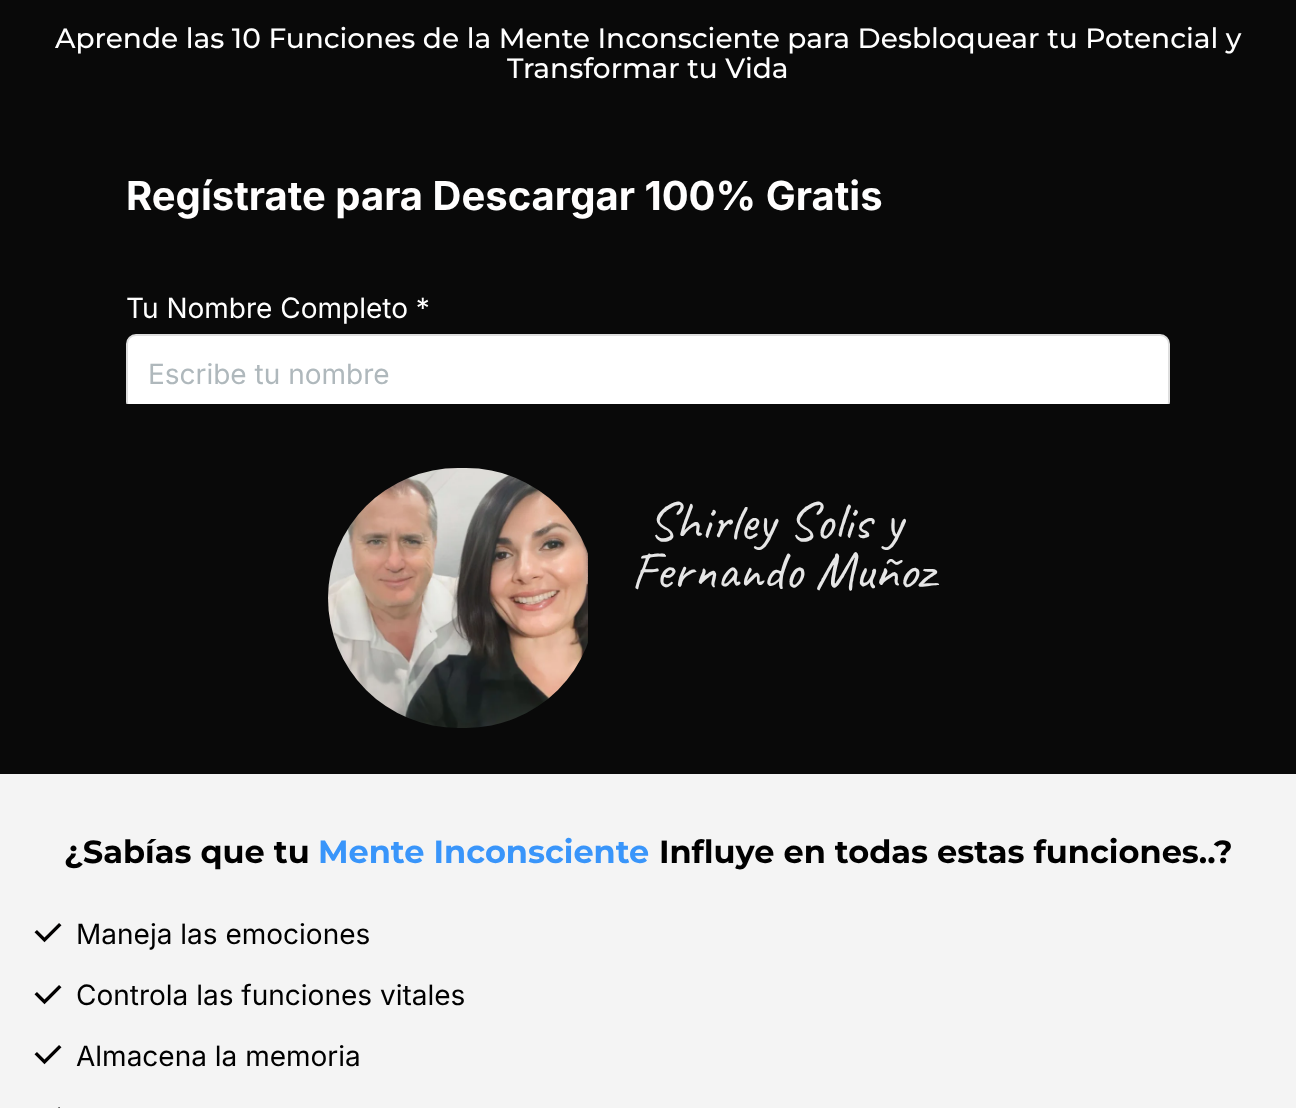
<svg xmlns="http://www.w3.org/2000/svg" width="1296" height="1108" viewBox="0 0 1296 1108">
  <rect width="100%" height="100%" fill="#090909"/>
  <text x="55" y="48" font-family="Montserrat" font-size="28" font-weight="500" fill="#ffffff">Aprende las 10 Funciones de la Mente Inconsciente para Desbloquear tu Potencial y</text>
  <text x="507" y="78" font-family="Montserrat" font-size="28" font-weight="500" fill="#ffffff">Transformar tu Vida</text>
  <image x="126" y="179" width="1044" height="225" href="img1.png"/>
  <image x="328" y="468" width="260" height="260" href="img2.png"/>
  <text x="648" y="539" font-family="Caveat" font-size="54" fill="#e6e6e6">Shirley Solis y</text>
  <text x="631" y="588" font-family="Caveat" font-size="54" fill="#e6e6e6">Fernando Muñoz</text>
  <rect x="0" y="774" width="1296" height="334" fill="#f4f4f4"/>
  <text x="64" y="863" font-family="Montserrat" font-size="32" font-weight="bold" fill="#000000">¿Sabías que tu</text>
  <text x="318" y="863" font-family="Montserrat" font-size="32" font-weight="bold" fill="#3995fa">Mente Inconsciente</text>
  <text x="659" y="863" font-family="Montserrat" font-size="32" font-weight="bold" fill="#000000">Influye en todas estas funciones..?</text>
  <image x="34" y="923" width="28" height="20" href="img3.png"/>
  <text x="76" y="944" font-family="Inter" font-size="28" fill="#000000">Maneja las emociones</text>
  <image x="34" y="985" width="28" height="20" href="img4.png"/>
  <text x="76" y="1005" font-family="Inter" font-size="28" fill="#000000">Controla las funciones vitales</text>
  <image x="34" y="1045" width="28" height="20" href="img3.png"/>
  <text x="76" y="1066" font-family="Inter" font-size="28" fill="#000000">Almacena la memoria</text>
  <image x="58" y="1107" width="2" height="1" href="img5.png"/>
</svg>
